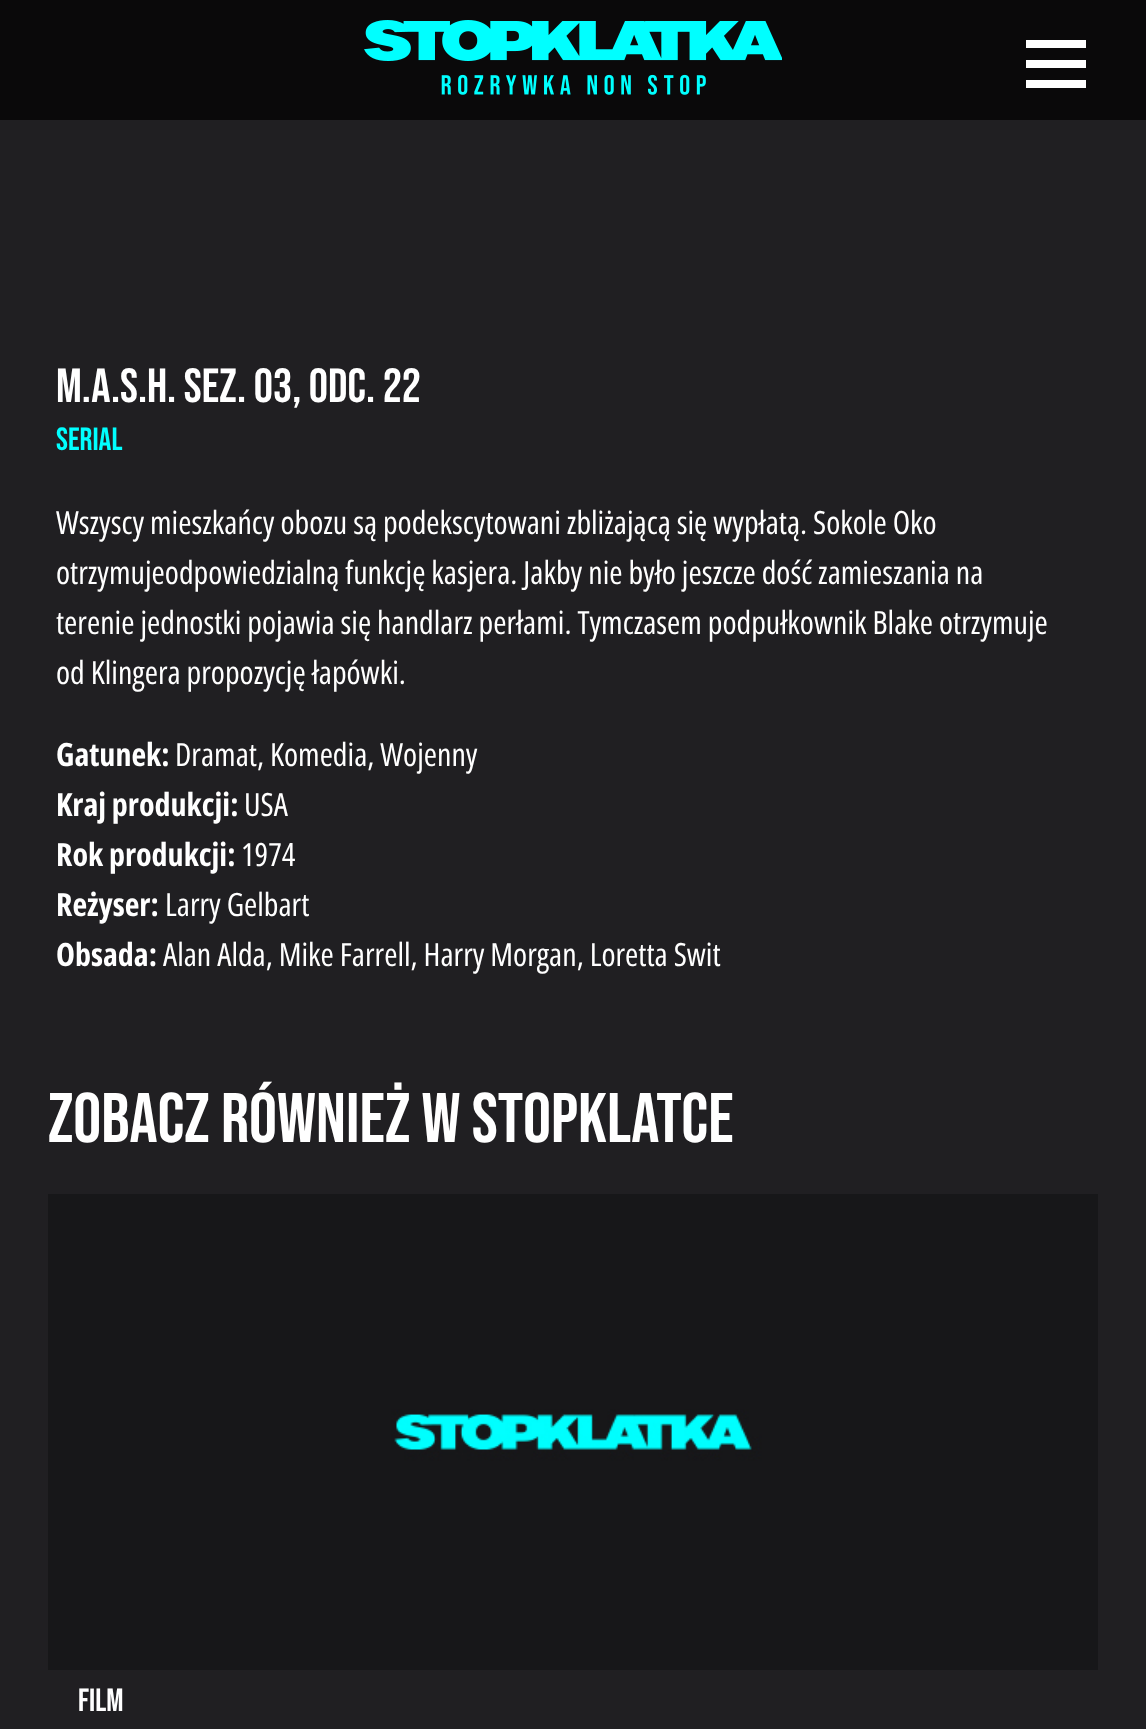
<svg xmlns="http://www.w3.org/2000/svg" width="1146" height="1729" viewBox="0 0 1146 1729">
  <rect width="100%" height="100%" fill="#201f22"/>
  <rect x="0" y="0" width="1146" height="120" fill="#0a090a"/>
  <image x="364" y="20" width="418" height="75" href="img1.png"/>
  <rect x="1026" y="60" width="60" height="8" fill="#ffffff"/>
  <rect x="1026" y="40" width="60" height="8" fill="#ffffff"/>
  <rect x="1026" y="80" width="60" height="8" fill="#ffffff"/>
  <text x="56" y="402" font-family="Bebas Neue" font-size="48" fill="#ffffff">M.A.S.H. SEZ. 03, ODC. 22</text>
  <text x="56" y="450" font-family="Bebas Neue" font-size="32" fill="#00ffff">SERIAL</text>
  <text x="56" y="534" font-family="Open Sans Condensed" font-size="32" fill="#ffffff">Wszyscy mieszkańcy obozu są podekscytowani zbliżającą się wypłatą. Sokole Oko</text>
  <text x="56" y="584" font-family="Open Sans Condensed" font-size="32" fill="#ffffff">otrzymujeodpowiedzialną funkcję kasjera. Jakby nie było jeszcze dość zamieszania na</text>
  <text x="56" y="634" font-family="Open Sans Condensed" font-size="32" fill="#ffffff">terenie jednostki pojawia się handlarz perłami. Tymczasem podpułkownik Blake otrzymuje</text>
  <text x="56" y="684" font-family="Open Sans Condensed" font-size="32" fill="#ffffff">od Klingera propozycję łapówki.</text>
  <text x="56" y="766" font-family="Open Sans Condensed" font-size="32" font-weight="bold" fill="#ffffff">Gatunek:</text>
  <text x="175" y="766" font-family="Open Sans Condensed" font-size="32" fill="#ffffff">Dramat, Komedia, Wojenny</text>
  <text x="56" y="816" font-family="Open Sans Condensed" font-size="32" font-weight="bold" fill="#ffffff">Kraj produkcji:</text>
  <text x="244" y="816" font-family="Open Sans Condensed" font-size="32" fill="#ffffff">USA</text>
  <text x="56" y="866" font-family="Open Sans Condensed" font-size="32" font-weight="bold" fill="#ffffff">Rok produkcji:</text>
  <text x="241" y="866" font-family="Open Sans Condensed" font-size="32" fill="#ffffff">1974</text>
  <text x="56" y="916" font-family="Open Sans Condensed" font-size="32" font-weight="bold" fill="#ffffff">Reżyser:</text>
  <text x="165" y="916" font-family="Open Sans Condensed" font-size="32" fill="#ffffff">Larry Gelbart</text>
  <text x="56" y="966" font-family="Open Sans Condensed" font-size="32" font-weight="bold" fill="#ffffff">Obsada:</text>
  <text x="163" y="966" font-family="Open Sans Condensed" font-size="32" fill="#ffffff">Alan Alda, Mike Farrell, Harry Morgan, Loretta Swit</text>
  <text x="48" y="1142" font-family="Bebas Neue" font-size="70" fill="#ffffff">ZOBACZ RÓWNIEŻ W STOPKLATCE</text>
  <image x="48" y="1194" width="1050" height="476" href="img2.png"/>
  <text x="78" y="1711" font-family="Bebas Neue" font-size="32" fill="#ffffff">FILM</text>
</svg>
